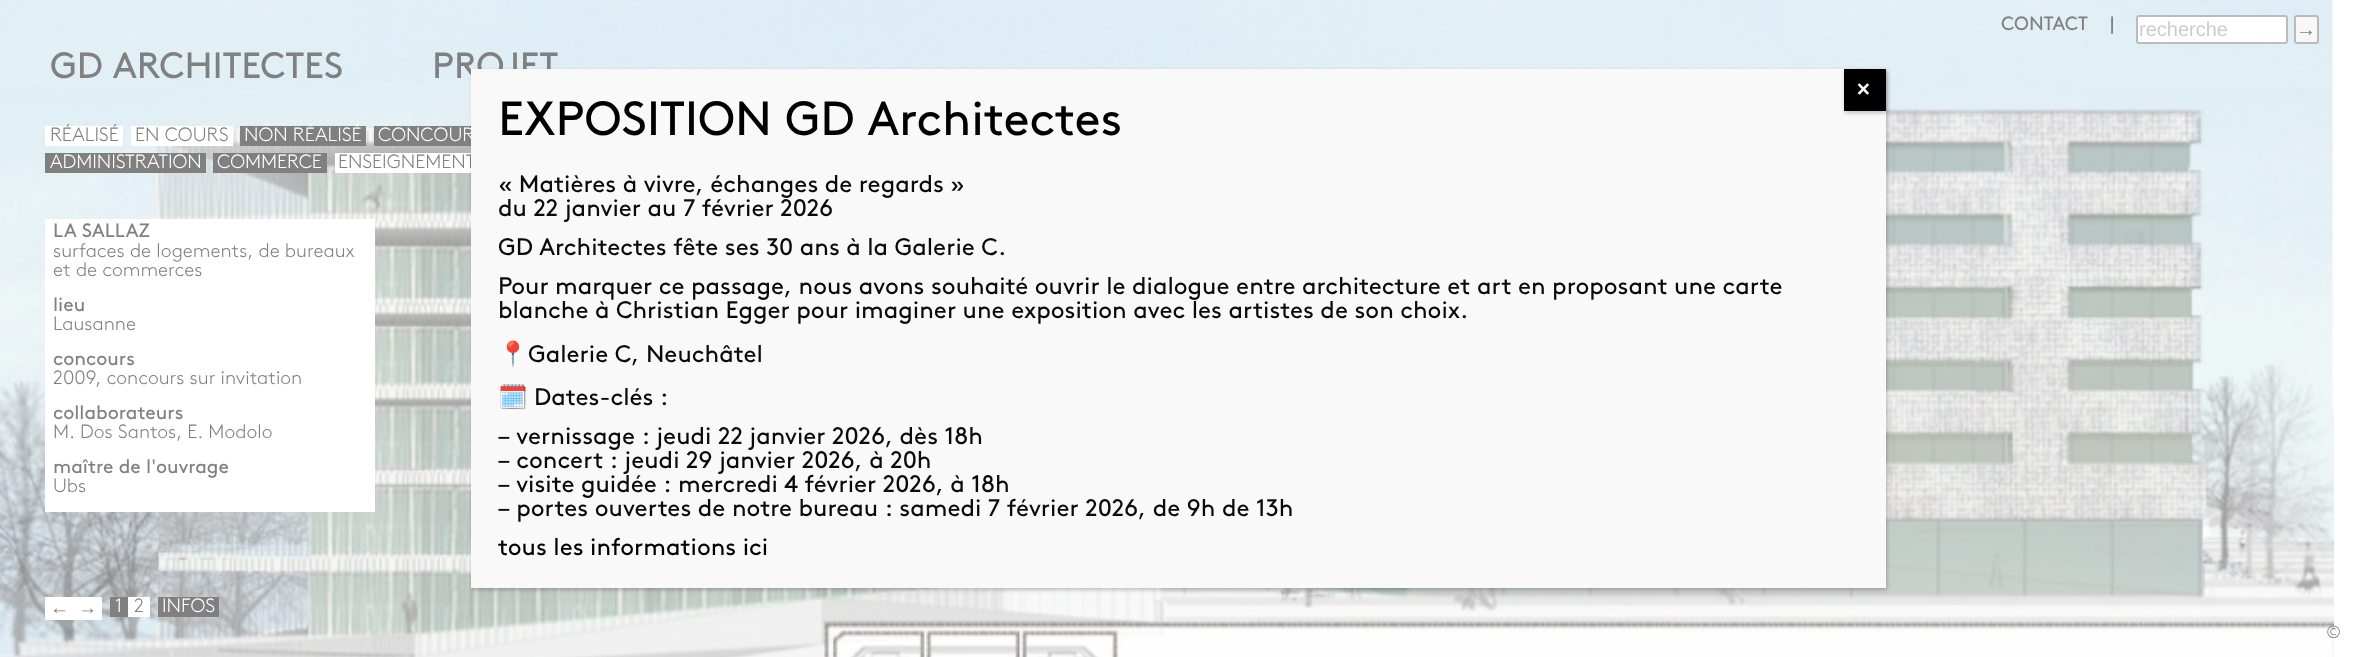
<svg xmlns="http://www.w3.org/2000/svg" width="2356" height="657" viewBox="0 0 2356 657">
  <defs>
    <filter id="blur1" x="-50%" y="-200%" width="200%" height="500%"><feGaussianBlur stdDeviation="2"/></filter>
  </defs>
  <rect width="100%" height="100%" fill="#ffffff"/>
  <image x="0" y="0" width="2334" height="657" href="img1.png"/>
  <text x="2001" y="30" font-family="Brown" font-size="19.25" fill="#808080">CONTACT</text>
  <text x="2110" y="30" font-family="Brown" font-size="19.25" fill="#808080">|</text>
  <rect x="2137" y="16" width="150" height="27" rx="2" fill="#ffffff" stroke="#bbbbbb" stroke-width="2"/>
  <text x="2139" y="36" font-family="Liberation Sans" font-size="20" fill="#cccccc">recherche</text>
  <rect x="2295" y="16" width="23" height="27" rx="2" fill="#f7f7f7" stroke="#bbbbbb" stroke-width="2"/>
  <text x="2296" y="36" font-family="Liberation Sans" font-size="20" fill="#808080">→</text>
  <text x="50" y="78" font-family="Brown" font-size="36.5" fill="#808080">GD ARCHITECTES</text>
  <text x="432" y="78" font-family="Brown" font-size="36.5" fill="#808080">PROJET</text>
  <rect x="45" y="126" width="78" height="20" fill="#ffffff"/>
  <text x="50" y="141" font-family="Brown" font-size="19.25" font-weight="300" fill="#808080">RÉALISÉ</text>
  <rect x="131" y="126" width="102" height="20" fill="#ffffff"/>
  <text x="135" y="141" font-family="Brown" font-size="19.25" font-weight="300" fill="#808080">EN COURS</text>
  <rect x="240" y="126" width="126" height="20" fill="#808080"/>
  <text x="244" y="141" font-family="Brown" font-size="19.25" font-weight="300" fill="#ffffff">NON RÉALISÉ</text>
  <rect x="374" y="126" width="97" height="20" fill="#808080"/>
  <text x="378" y="141" font-family="Brown" font-size="19.25" font-weight="300" fill="#ffffff">CONCOUR</text>
  <rect x="45" y="153" width="161" height="20" fill="#808080"/>
  <text x="50" y="168" font-family="Brown" font-size="19.25" font-weight="300" fill="#ffffff">ADMINISTRATION</text>
  <rect x="213" y="153" width="114" height="20" fill="#808080"/>
  <text x="217" y="168" font-family="Brown" font-size="19.25" font-weight="300" fill="#ffffff">COMMERCE</text>
  <rect x="335" y="153" width="136" height="20" fill="#ffffff"/>
  <text x="338" y="168" font-family="Brown" font-size="19.25" font-weight="300" fill="#808080">ENSEIGNEMENT</text>
  <rect x="45" y="219" width="330" height="293" fill="#ffffff"/>
  <text x="53" y="237" font-family="Brown" font-size="19.25" fill="#808080">LA SALLAZ</text>
  <text x="53" y="257" font-family="Brown" font-size="19.25" font-weight="300" fill="#808080">surfaces de logements, de bureaux</text>
  <text x="53" y="276" font-family="Brown" font-size="19.25" font-weight="300" fill="#808080">et de commerces</text>
  <text x="53" y="311" font-family="Brown" font-size="19.25" fill="#808080">lieu</text>
  <text x="53" y="330" font-family="Brown" font-size="19.25" font-weight="300" fill="#808080">Lausanne</text>
  <text x="53" y="365" font-family="Brown" font-size="19.25" fill="#808080">concours</text>
  <text x="53" y="384" font-family="Brown" font-size="19.25" font-weight="300" fill="#808080">2009, concours sur invitation</text>
  <text x="53" y="419" font-family="Brown" font-size="19.25" fill="#808080">collaborateurs</text>
  <text x="53" y="438" font-family="Brown" font-size="19.25" font-weight="300" fill="#808080">M. Dos Santos, E. Modolo</text>
  <text x="53" y="473" font-family="Brown" font-size="19.25" fill="#808080">maître de l'ouvrage</text>
  <text x="53" y="492" font-family="Brown" font-size="19.25" font-weight="300" fill="#808080">Ubs</text>
  <rect x="45" y="597" width="57" height="23" fill="#ffffff"/>
  <text x="50" y="614" font-family="Liberation Serif" font-size="19.25" fill="#808080">←</text>
  <text x="78" y="614" font-family="Liberation Serif" font-size="19.25" fill="#808080">→</text>
  <rect x="128" y="597" width="22" height="20" fill="#ffffff"/>
  <rect x="110" y="597" width="18" height="20" fill="#808080"/>
  <text x="115" y="612" font-family="Brown" font-size="19.25" font-weight="300" fill="#ffffff">1</text>
  <text x="134" y="612" font-family="Brown" font-size="19.25" font-weight="300" fill="#808080">2</text>
  <rect x="158" y="597" width="61" height="20" fill="#808080"/>
  <text x="162" y="612" font-family="Brown" font-size="19.25" font-weight="300" fill="#ffffff">INFOS</text>
  <text x="2326" y="638" font-family="Brown" font-size="18" font-weight="300" fill="#808080">©</text>
  <rect x="473" y="71" width="1414" height="519" fill="#020202" fill-opacity="0.23" filter="url(#blur1)"/>
  <rect x="471" y="69" width="1415" height="519" fill="#f9f9f9"/>
  <rect x="1845" y="71" width="42" height="42" fill="#020202" fill-opacity="0.23" filter="url(#blur1)"/>
  <rect x="1844" y="69" width="42" height="42" fill="#000000"/>
  <text x="1856" y="96" font-family="Brown" font-size="27" fill="#ffffff">×</text>
  <text x="498" y="135" font-family="Brown" font-size="48" fill="#000000">EXPOSITION GD Architectes</text>
  <text x="498" y="192" font-family="Brown" font-size="24" fill="#0a0a0a">« Matières à vivre, échanges de regards »</text>
  <text x="498" y="216" font-family="Brown" font-size="24" fill="#0a0a0a">du 22 janvier au 7 février 2026</text>
  <text x="498" y="255" font-family="Brown" font-size="24" fill="#0a0a0a">GD Architectes fête ses 30 ans à la Galerie C.</text>
  <text x="498" y="294" font-family="Brown" font-size="24" fill="#0a0a0a">Pour marquer ce passage, nous avons souhaité ouvrir le dialogue entre architecture et art en proposant une carte</text>
  <text x="498" y="318" font-family="Brown" font-size="24" fill="#0a0a0a">blanche à Christian Egger pour imaginer une exposition avec les artistes de son choix.</text>
  <text x="498" y="362" font-family="Noto Color Emoji" font-size="24" fill="#0a0a0a">📍</text>
  <text x="528" y="362" font-family="Brown" font-size="24" fill="#0a0a0a">Galerie C, Neuchâtel</text>
  <text x="498" y="405" font-family="Noto Color Emoji" font-size="24" fill="#0a0a0a">🗓️</text>
  <text x="534" y="405" font-family="Brown" font-size="24" fill="#0a0a0a">Dates-clés :</text>
  <text x="498" y="444" font-family="Brown" font-size="24" fill="#0a0a0a">– vernissage : jeudi 22 janvier 2026, dès 18h</text>
  <text x="498" y="468" font-family="Brown" font-size="24" fill="#0a0a0a">– concert : jeudi 29 janvier 2026, à 20h</text>
  <text x="498" y="492" font-family="Brown" font-size="24" fill="#0a0a0a">– visite guidée : mercredi 4 février 2026, à 18h</text>
  <text x="498" y="516" font-family="Brown" font-size="24" fill="#0a0a0a">– portes ouvertes de notre bureau : samedi 7 février 2026, de 9h de 13h</text>
  <text x="498" y="555" font-family="Brown" font-size="24" fill="#000000">tous les informations ici</text>
</svg>
